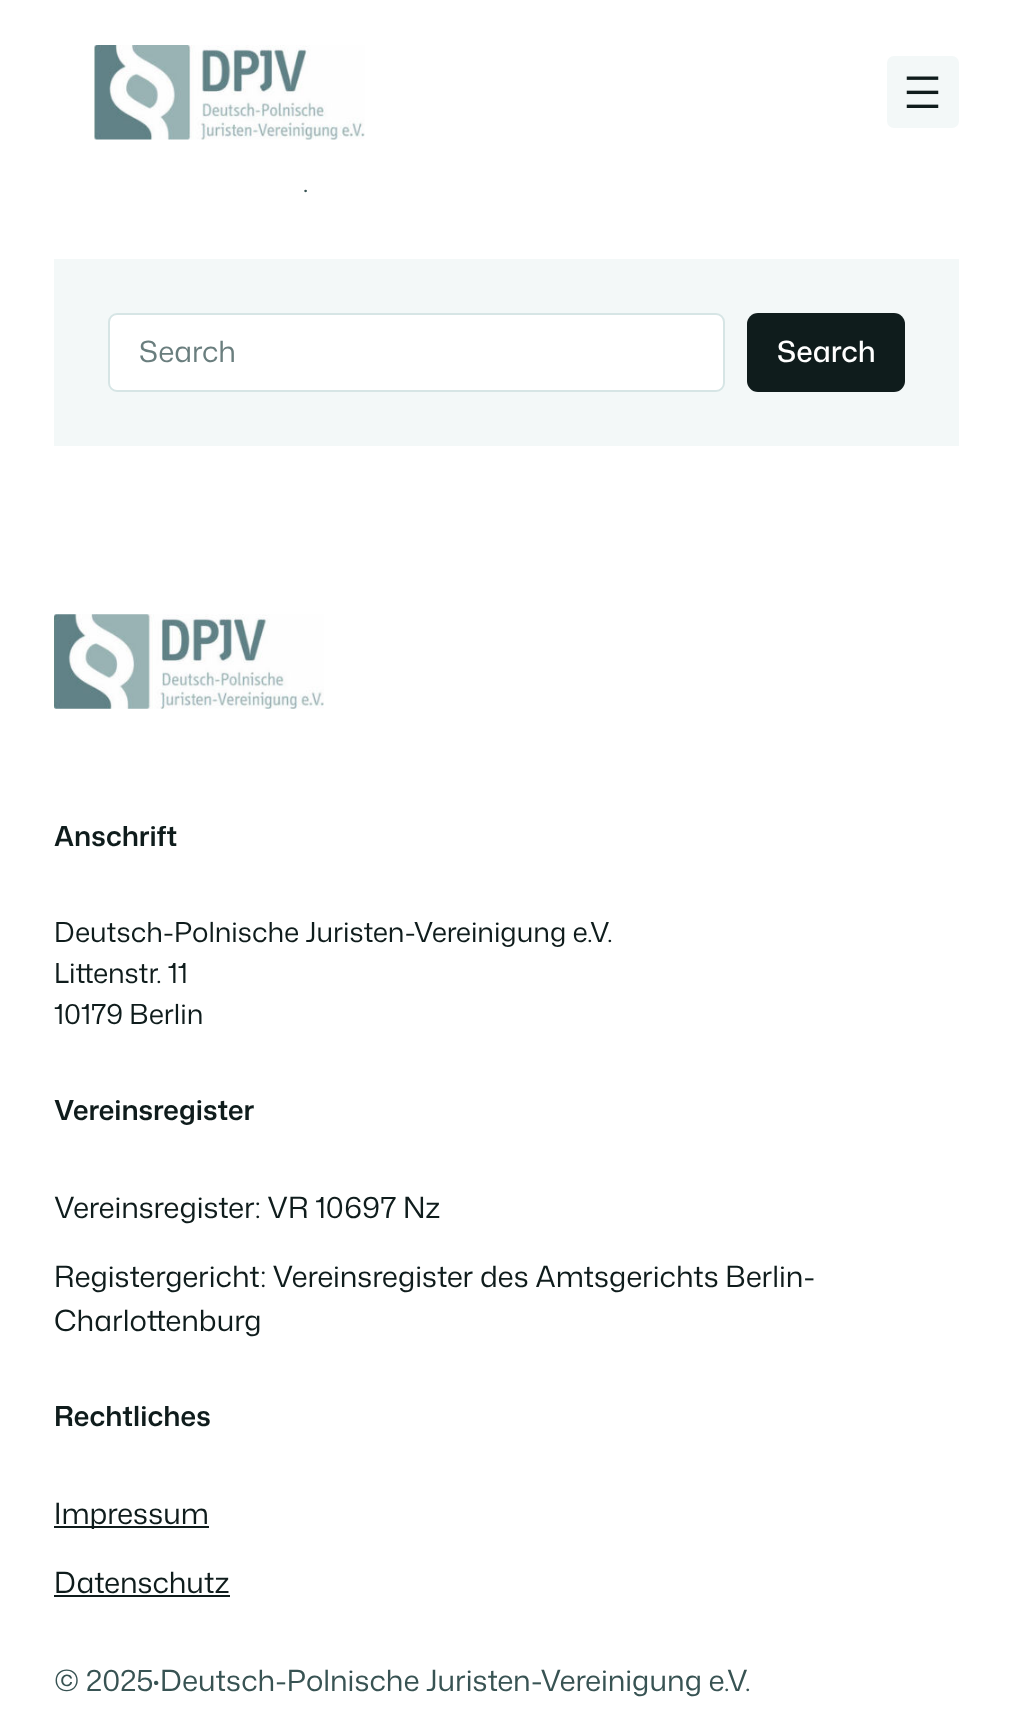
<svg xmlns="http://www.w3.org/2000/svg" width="1011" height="1726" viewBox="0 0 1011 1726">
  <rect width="100%" height="100%" fill="#ffffff"/>
  <image x="94" y="45" width="271" height="95" href="img1.png"/>
  <rect x="887" y="56" width="72" height="72" rx="7" fill="#f3f8f8"/>
  <image x="906" y="76" width="33" height="32" href="img2.png"/>
  <text x="303" y="192" font-family="Mona Sans" font-size="27.6" fill="#385353">.</text>
  <rect x="54" y="259" width="905" height="187" fill="#f3f8f8"/>
  <rect x="109" y="314" width="615" height="77" rx="8" fill="#ffffff" stroke="#d6e5e5" stroke-width="2"/>
  <text x="139" y="362" font-family="Mona Sans" font-size="29.2" fill="#6a7e7e">Search</text>
  <rect x="747" y="313" width="158" height="79" rx="11" fill="#0f1c1c"/>
  <text x="777" y="362" font-family="Mona Sans" font-size="29.2" font-weight="500" fill="#ffffff">Search</text>
  <image x="54" y="614" width="270" height="95" href="img3.png"/>
  <text x="54" y="846" font-family="Mona Sans" font-size="27.6" font-weight="600" fill="#0f1c1c">Anschrift</text>
  <text x="54" y="942" font-family="Mona Sans" font-size="27.6" fill="#0f1c1c">Deutsch-Polnische Juristen-Vereinigung e.V.</text>
  <text x="54" y="983" font-family="Mona Sans" font-size="27.6" fill="#0f1c1c">Littenstr. 11</text>
  <text x="54" y="1024" font-family="Mona Sans" font-size="27.6" fill="#0f1c1c">10179 Berlin</text>
  <text x="54" y="1120" font-family="Mona Sans" font-size="27.6" font-weight="600" fill="#0f1c1c">Vereinsregister</text>
  <text x="54" y="1218" font-family="Mona Sans" font-size="29.2" fill="#0f1c1c">Vereinsregister: VR 10697 Nz</text>
  <text x="54" y="1287" font-family="Mona Sans" font-size="29.2" fill="#0f1c1c">Registergericht: Vereinsregister des Amtsgerichts Berlin-</text>
  <text x="54" y="1331" font-family="Mona Sans" font-size="29.2" fill="#0f1c1c">Charlottenburg</text>
  <text x="54" y="1426" font-family="Mona Sans" font-size="27.6" font-weight="600" fill="#0f1c1c">Rechtliches</text>
  <rect x="54" y="1526" width="155" height="2" fill="#0f1c1c"/>
  <text x="54" y="1524" font-family="Mona Sans" font-size="29.2" fill="#0f1c1c">Impressum</text>
  <text x="54" y="1593" font-family="Mona Sans" font-size="29.2" fill="#0f1c1c">Datenschutz</text>
  <rect x="54" y="1595" width="176" height="2" fill="#0f1c1c"/>
  <text x="54" y="1691" font-family="Mona Sans" font-size="29.2" fill="#385353">© 2025</text>
  <text x="153" y="1691" font-family="Mona Sans" font-size="29.2" font-weight="600" fill="#385353">·</text>
  <text x="160" y="1691" font-family="Mona Sans" font-size="29.2" fill="#385353">Deutsch-Polnische Juristen-Vereinigung e.V.</text>
</svg>
